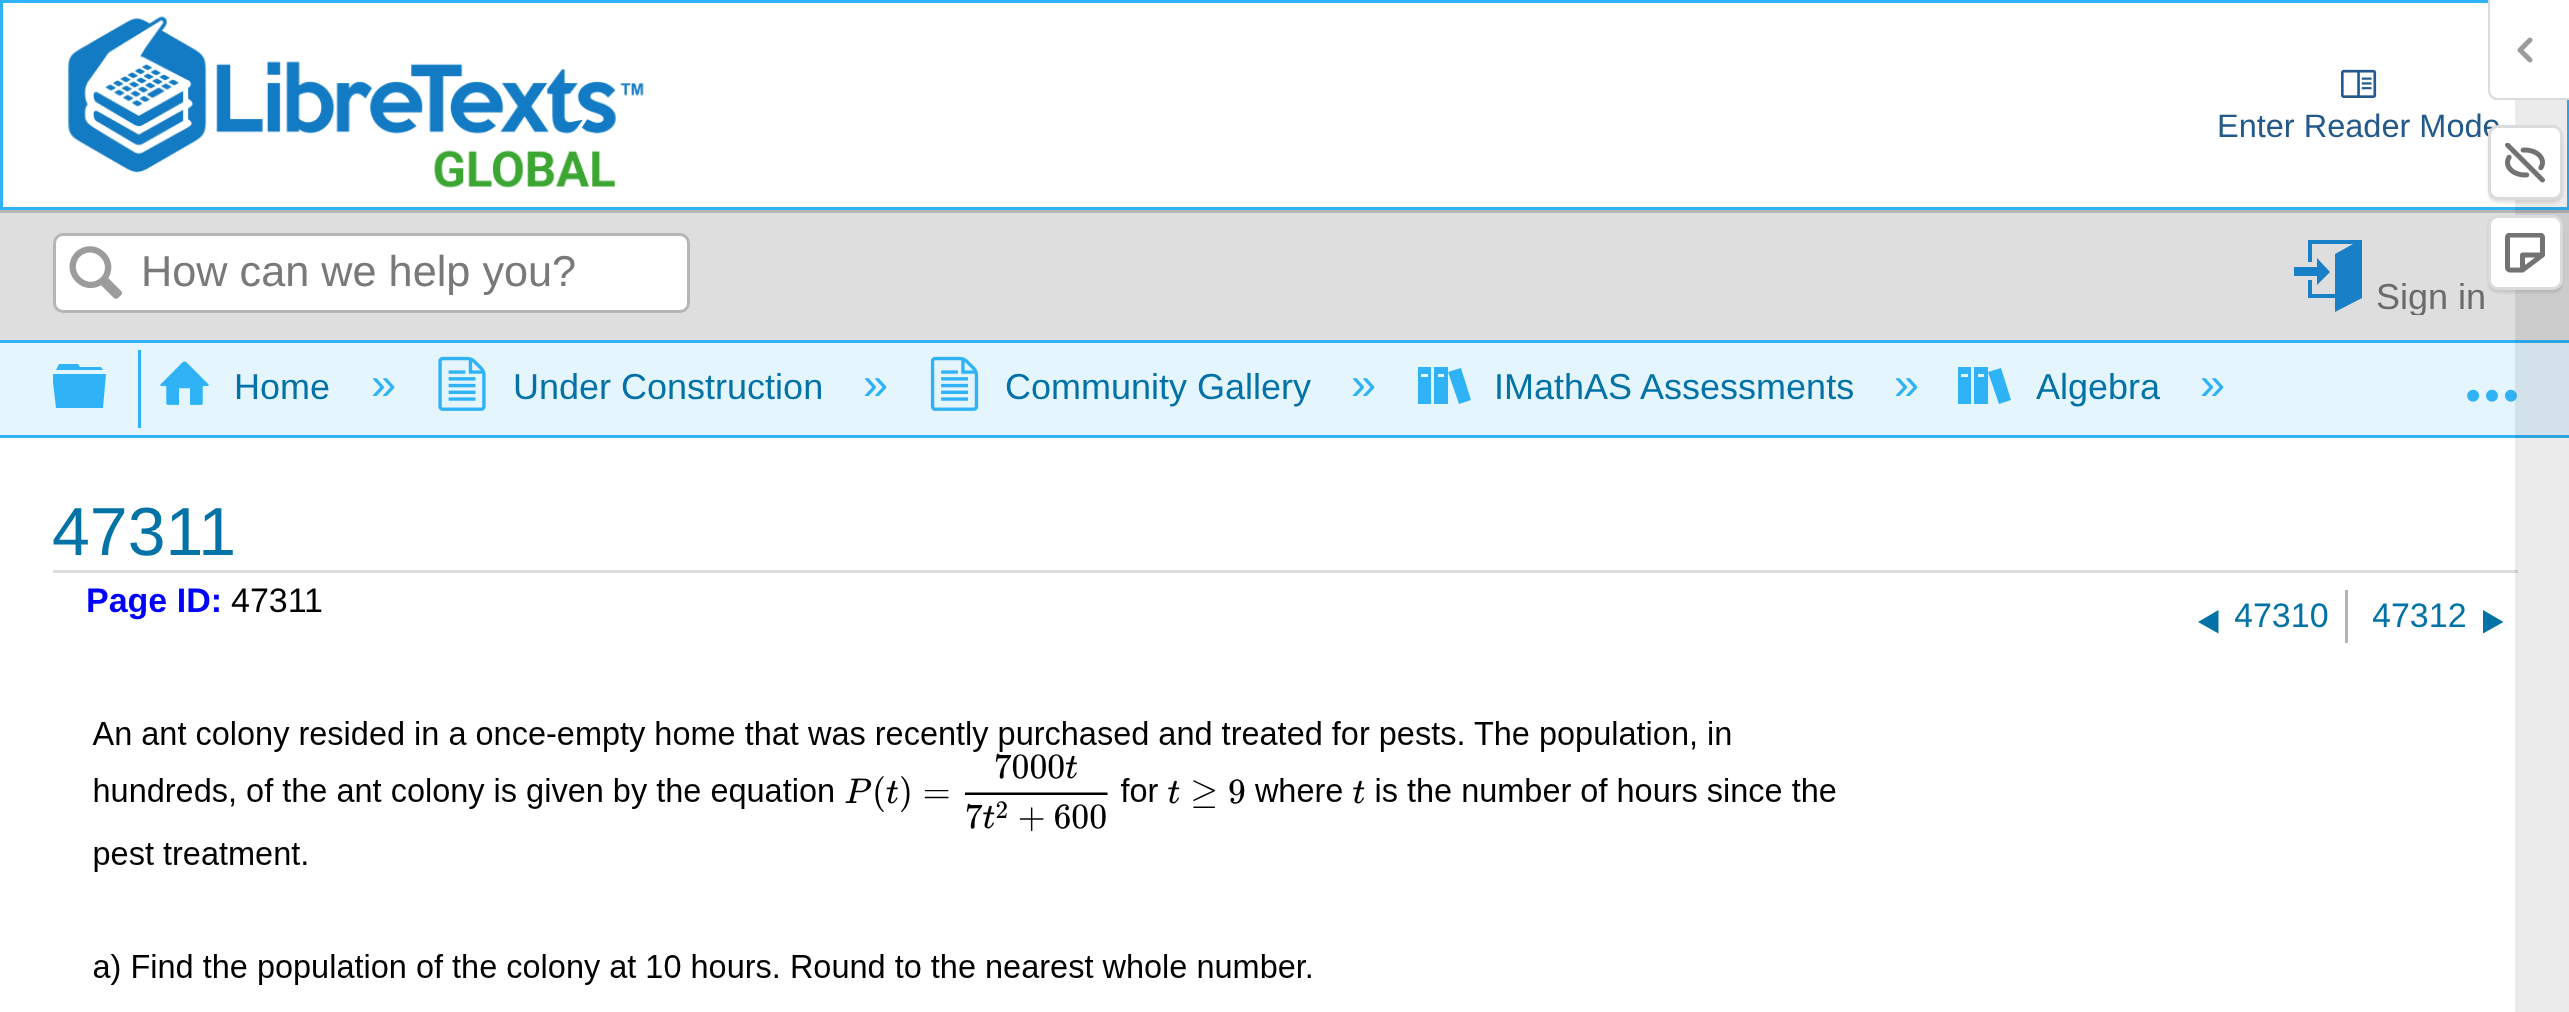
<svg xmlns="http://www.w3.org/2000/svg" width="2569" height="1012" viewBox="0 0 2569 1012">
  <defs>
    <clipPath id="clip1"><rect x="2290" y="238" width="210" height="77"/></clipPath>
    <clipPath id="clip2"><rect x="2235" y="598" width="95" height="40"/></clipPath>
    <clipPath id="clip3"><rect x="2373" y="598" width="95" height="40"/></clipPath>
    <filter id="blur1" x="-50%" y="-200%" width="200%" height="500%"><feGaussianBlur stdDeviation="1"/></filter>
  </defs>
  <rect width="100%" height="100%" fill="#ffffff"/>
  <rect x="1.5" y="1.5" width="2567" height="207" fill="none" stroke="#30b3f6" stroke-width="3"/>
  <image x="68" y="16" width="576" height="172" href="img1.png"/>
  <image x="2341" y="69" width="36" height="29" href="img2.png"/>
  <text x="2217" y="137" font-family="Liberation Sans" font-size="32.5" fill="#235a8b">Enter Reader Mode</text>
  <rect x="0" y="213" width="2569" height="127" fill="#dedede"/>
  <rect x="0" y="210" width="2569" height="3" fill="#b6b6b6"/>
  <rect x="54.5" y="234.5" width="634" height="77" rx="8.5" fill="#ffffff" stroke="#b6b6b6" stroke-width="3"/>
  <image x="69" y="246" width="53" height="53" href="img3.png"/>
  <text x="141" y="286" font-family="Liberation Sans" font-size="43.25" fill="#797979">How can we help you?</text>
  <path d="M2317 276H2294V267H2317V258L2330 272L2317 285ZM2362 240V298L2335 312V298H2308V280H2312V294H2335V254L2353 244H2312V262H2308V240Z" fill="#197fc6"/>
  <g clip-path="url(#clip1)">
    <text x="2376" y="309" font-family="Liberation Sans" font-size="36" fill="#6b6b6b">Sign in</text>
  </g>
  <rect x="0" y="343" width="2569" height="92" fill="#e5f5fe"/>
  <rect x="0" y="340" width="2569" height="3" fill="#30b3f6"/>
  <rect x="0" y="435" width="2569" height="3" fill="#30b3f6"/>
  <path d="M53 382V374H106L103 408H56ZM101 367H80L78 364H59L56 370H103Z" fill="#30b3f6" fill-rule="evenodd"/>
  <rect x="138" y="350" width="3" height="78" fill="#30b3f6"/>
  <image x="160" y="361" width="49" height="44" href="img4.png"/>
  <text x="234" y="399" font-family="Liberation Sans" font-size="36" fill="#0372a6">Home</text>
  <text x="371" y="399" font-family="Liberation Sans" font-size="45" fill="#30b3f6">»</text>
  <image x="438" y="356" width="48" height="55" href="img5.png"/>
  <text x="513" y="399" font-family="Liberation Sans" font-size="36" fill="#0372a6">Under Construction</text>
  <text x="863" y="399" font-family="Liberation Sans" font-size="45" fill="#30b3f6">»</text>
  <image x="930" y="356" width="49" height="55" href="img6.png"/>
  <text x="1005" y="399" font-family="Liberation Sans" font-size="36" fill="#0372a6">Community Gallery</text>
  <text x="1351" y="399" font-family="Liberation Sans" font-size="45" fill="#30b3f6">»</text>
  <text x="1494" y="399" font-family="Liberation Sans" font-size="36" fill="#0372a6">IMathAS Assessments</text>
  <path d="M1448 372L1461 368L1471 400L1459 404ZM1418 404H1431V367H1418ZM1421 374H1428V377H1421ZM1434 404H1448V367H1434ZM1438 374H1444V377H1438Z" fill="#30b3f6"/>
  <text x="1894" y="399" font-family="Liberation Sans" font-size="45" fill="#30b3f6">»</text>
  <text x="2036" y="399" font-family="Liberation Sans" font-size="36" fill="#0372a6">Algebra</text>
  <path d="M1988 372L2001 368L2011 400L1999 404ZM1958 404H1971V367H1958ZM1961 374H1968V377H1961ZM1974 404H1988V367H1974ZM1978 374H1984V377H1978Z" fill="#30b3f6"/>
  <text x="2200" y="399" font-family="Liberation Sans" font-size="45" fill="#30b3f6">»</text>
  <image x="2467" y="389" width="50" height="13" href="img7.png"/>
  <rect x="53" y="570" width="2465" height="3" fill="#dddddd"/>
  <text x="52" y="555" font-family="Liberation Sans" font-size="68" fill="#0372a6">47311</text>
  <text x="86" y="612" font-family="Liberation Sans" font-size="34" font-weight="bold" fill="#0000ff">Page ID:</text>
  <text x="231" y="612" font-family="Liberation Sans" font-size="34" fill="#000000">47311</text>
  <rect x="2345" y="590" width="3" height="53" fill="#b4b4b4"/>
  <path d="M2218.5 610V633.5L2198 622Z" fill="#0372a6"/>
  <g clip-path="url(#clip2)">
    <text x="2234" y="627" font-family="Liberation Sans" font-size="34" fill="#0372a6">47310</text>
  </g>
  <g clip-path="url(#clip3)">
    <text x="2372" y="627" font-family="Liberation Sans" font-size="34" fill="#0372a6">47312</text>
  </g>
  <path d="M2483 610V633.5L2503.5 622Z" fill="#0372a6"/>
  <image x="92" y="721" width="1744" height="264" href="img8.png"/>
  <rect x="2515" y="100" width="54" height="912" fill="#000000" fill-opacity="0.08"/>
  <path d="M2490 0H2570V98H2498C2493.5 98 2490 94.5 2490 90Z" fill="#ffffff"/>
  <path d="M2488 0H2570V100H2498C2492 100 2488 96 2488 90ZM2490 0H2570V98H2498C2493 98 2490 94 2490 90Z" fill="#dbdbdb" fill-rule="evenodd"/>
  <image x="2517" y="37" width="16" height="26" href="img9.png"/>
  <rect x="2488" y="128" width="75" height="75" rx="10" fill="#000000" fill-opacity="0.1" filter="url(#blur1)"/>
  <rect x="2489.5" y="126.5" width="72" height="72" rx="8.5" fill="#ffffff" stroke="#dbdbdb" stroke-width="3"/>
  <image x="2505" y="143" width="40" height="40" href="img10.png"/>
  <rect x="2488" y="218" width="75" height="75" rx="10" fill="#000000" fill-opacity="0.1" filter="url(#blur1)"/>
  <rect x="2489.5" y="216.5" width="72" height="72" rx="8.5" fill="#ffffff" stroke="#dbdbdb" stroke-width="3"/>
  <image x="2505" y="233" width="40" height="40" href="img11.png"/>
</svg>
